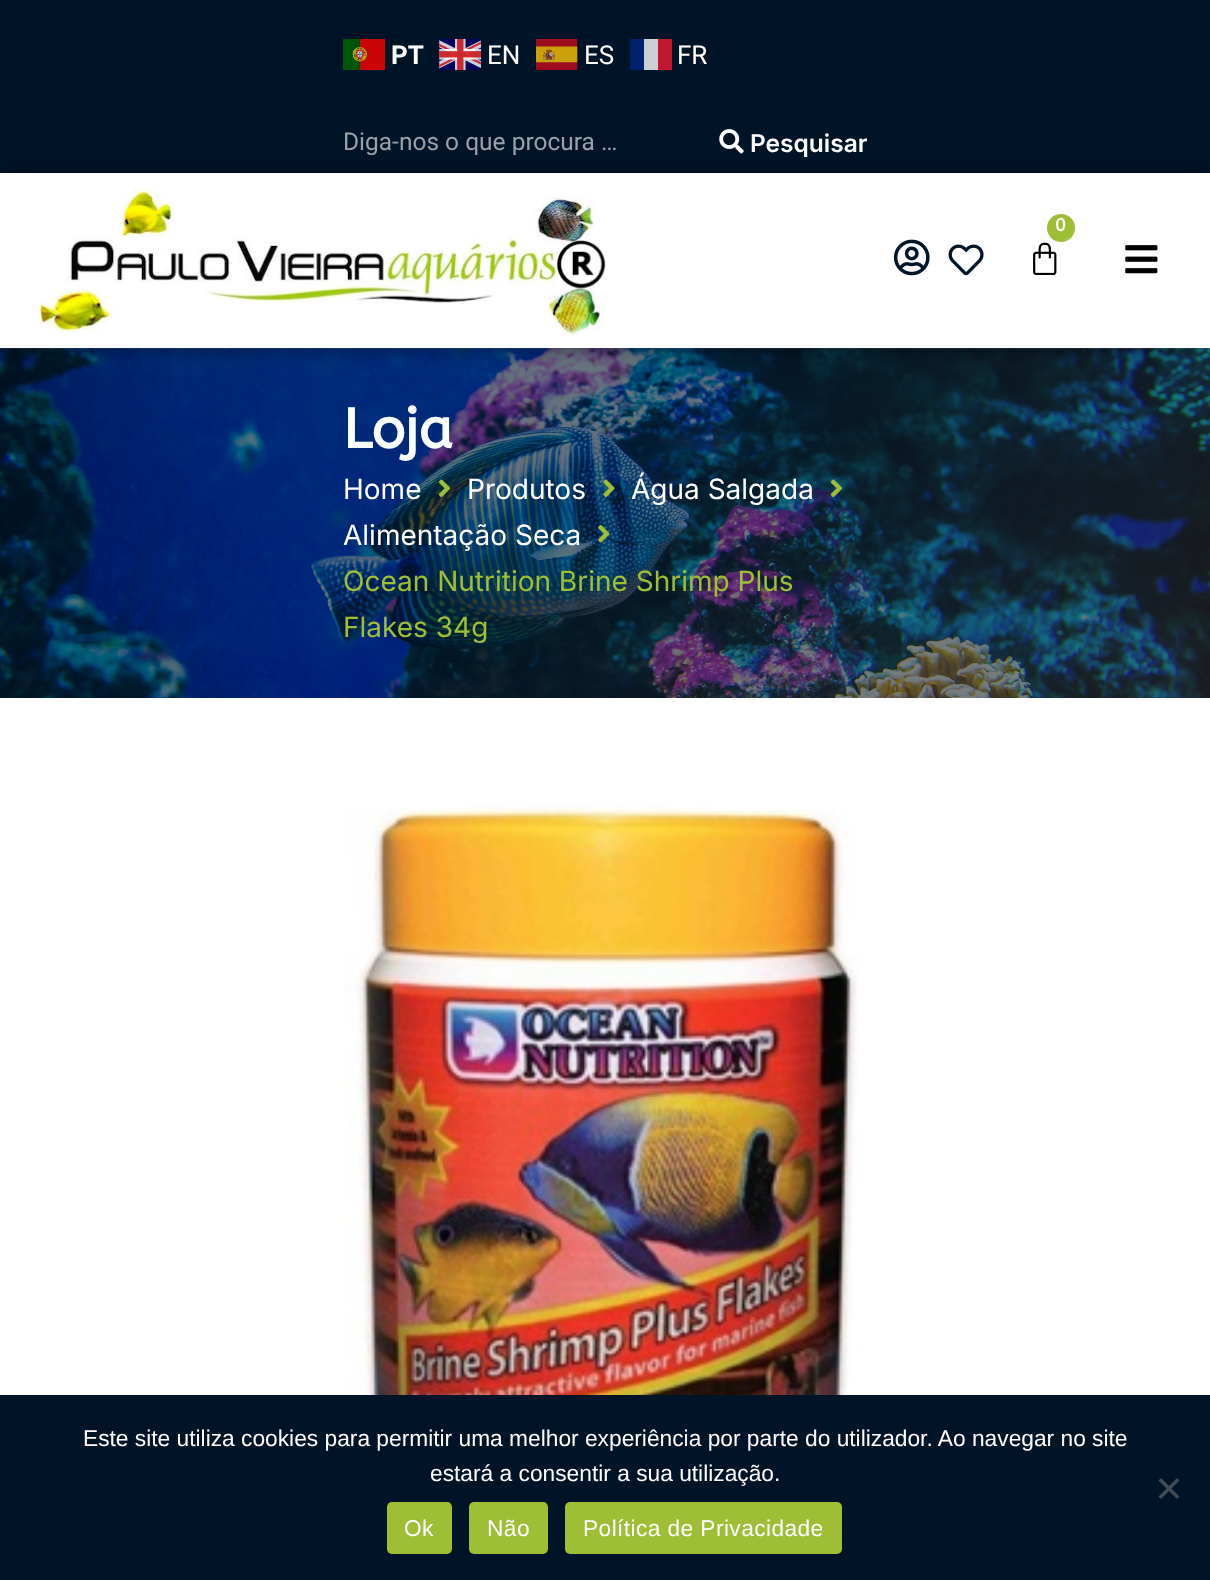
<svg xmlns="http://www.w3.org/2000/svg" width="1210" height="1580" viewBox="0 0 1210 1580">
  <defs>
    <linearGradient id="g1" gradientUnits="userSpaceOnUse" x1="1027" y1="903" x2="184" y2="144"><stop offset="0" stop-color="#2c2c2c" stop-opacity="0.6"/><stop offset="0.56" stop-color="#001428" stop-opacity="0.6"/></linearGradient>
    <filter id="blur1" x="-50%" y="-200%" width="200%" height="500%"><feGaussianBlur stdDeviation="9"/></filter>
  </defs>
  <rect width="100%" height="100%" fill="#ffffff"/>
  <rect x="0" y="0" width="1210" height="173" fill="#001428"/>
  <image x="343" y="39" width="42" height="31" href="img1.png"/>
  <text x="391" y="64" font-family="Roboto" font-size="26" font-weight="bold" fill="#ffffff">PT</text>
  <image x="439" y="39" width="42" height="31" href="img2.png"/>
  <text x="487" y="64" font-family="Roboto" font-size="26" fill="#ffffff">EN</text>
  <image x="536" y="39" width="42" height="31" href="img3.png"/>
  <text x="584" y="64" font-family="Roboto" font-size="26" fill="#ffffff">ES</text>
  <text x="677" y="64" font-family="Roboto" font-size="26" fill="#ffffff">FR</text>
  <rect x="644" y="39" width="14" height="31" fill="#ccd0d4"/>
  <rect x="630" y="39" width="14" height="31" fill="#00226e"/>
  <rect x="658" y="39" width="14" height="31" fill="#c2172e"/>
  <text x="343" y="150" font-family="Roboto" font-size="24.5" fill="#99a1a9">Diga-nos o que procura …</text>
  <image x="719" y="129" width="25" height="25" href="img4.png"/>
  <text x="750" y="152" font-family="Inter" font-size="24.5" font-weight="600" fill="#ffffff">Pesquisar</text>
  <image x="0" y="348" width="1210" height="350" href="img10.png"/>
  <rect x="0" y="348" width="1210" height="350" fill="url(#g1)"/>
  <rect x="0" y="173" width="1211" height="175" fill="#000000" fill-opacity="0.5" filter="url(#blur1)"/>
  <rect x="0" y="173" width="1210" height="175" fill="#ffffff"/>
  <image x="39" y="186" width="567" height="151" href="img5.png"/>
  <circle cx="1061" cy="228" r="14" fill="#9ebe36"/>
  <text x="1055" y="231" font-family="ABeeZee" font-size="18" font-weight="bold" fill="#ffffff">0</text>
  <image x="1033" y="242" width="24" height="33" href="img6.png"/>
  <image x="893" y="239" width="37" height="37" href="img7.png"/>
  <image x="948" y="244" width="36" height="32" href="img8.png"/>
  <image x="1125" y="245" width="33" height="29" href="img9.png"/>
  <text x="343" y="448" font-family="ABeeZee" font-size="56" font-weight="bold" fill="#f8feff">Loja</text>
  <text x="343" y="499" font-family="Inter" font-size="28" fill="#ffffff">Home</text>
  <image x="438" y="479" width="13" height="18" href="img11.png"/>
  <text x="467" y="499" font-family="Inter" font-size="28" fill="#ffffff">Produtos</text>
  <image x="603" y="479" width="12" height="18" href="img12.png"/>
  <text x="631" y="499" font-family="Inter" font-size="28" fill="#ffffff">Água Salgada</text>
  <image x="830" y="479" width="13" height="18" href="img13.png"/>
  <text x="343" y="545" font-family="Inter" font-size="28" fill="#ffffff">Alimentação Seca</text>
  <image x="598" y="525" width="12" height="18" href="img14.png"/>
  <text x="343" y="591" font-family="Inter" font-size="28" fill="#9ebe36">Ocean Nutrition Brine Shrimp Plus</text>
  <text x="343" y="637" font-family="Inter" font-size="28" fill="#9ebe36">Flakes 34g</text>
  <image x="343" y="806" width="516" height="589" href="img15.png"/>
  <rect x="0" y="1395" width="1210" height="185" fill="#001428"/>
  <text x="83" y="1446" font-family="Liberation Sans" font-size="22.75" fill="#ffffff">Este site utiliza cookies para permitir uma melhor experiência por parte do utilizador. Ao navegar no site</text>
  <text x="430" y="1481" font-family="Liberation Sans" font-size="22.75" fill="#ffffff">estará a consentir a sua utilização.</text>
  <path d="M1177 1478L1179.5 1480.5L1161 1499L1158.5 1496.5Z" fill="#404a54"/>
  <path d="M1158.5 1480.5L1161 1478L1179.5 1496.5L1177 1499Z" fill="#404a54"/>
  <rect x="387" y="1502" width="65" height="52" rx="5" fill="#9ebe36"/>
  <text x="404" y="1536" font-family="Liberation Sans" font-size="22.75" letter-spacing="0.4" fill="#ffffff">Ok</text>
  <rect x="469" y="1502" width="79" height="52" rx="5" fill="#9ebe36"/>
  <text x="487" y="1536" font-family="Liberation Sans" font-size="22.75" letter-spacing="0.4" fill="#ffffff">Não</text>
  <rect x="565" y="1502" width="277" height="52" rx="5" fill="#9ebe36"/>
  <text x="583" y="1536" font-family="Liberation Sans" font-size="22.75" letter-spacing="0.4" fill="#ffffff">Política de Privacidade</text>
</svg>
